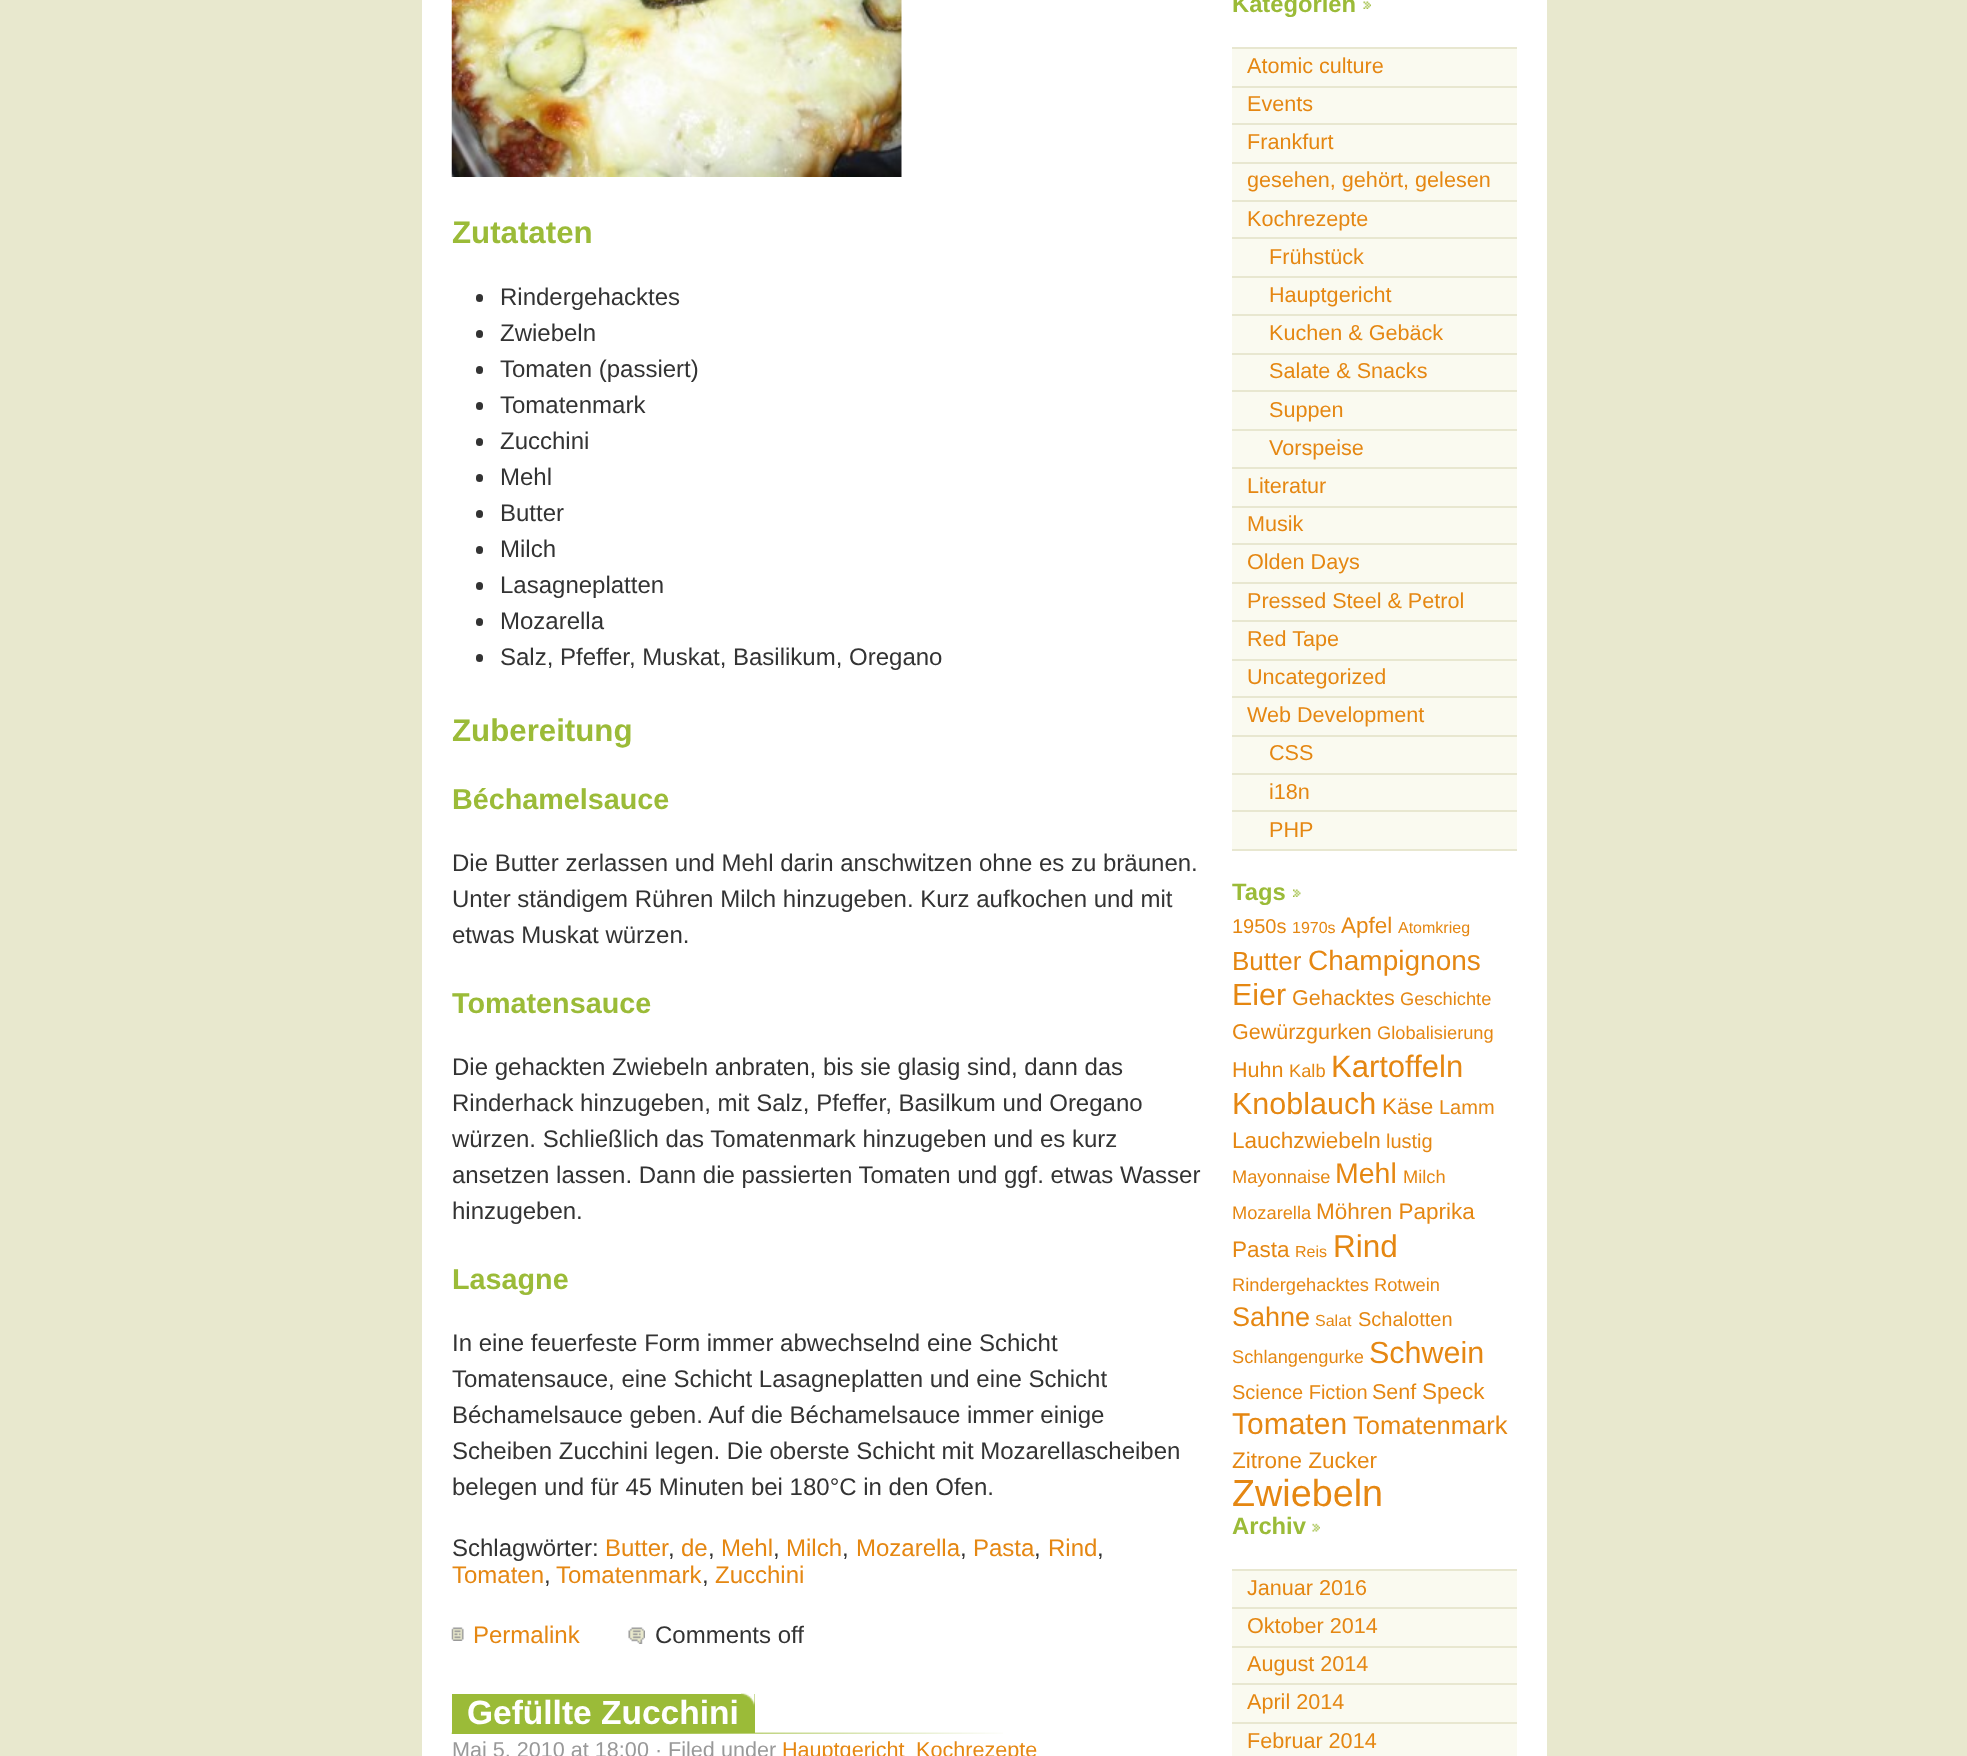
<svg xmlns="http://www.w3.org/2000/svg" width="1967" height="1756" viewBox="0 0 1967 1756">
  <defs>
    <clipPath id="clip1"><rect x="452" y="0" width="750" height="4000"/></clipPath>
    <clipPath id="clip2"><rect x="1232" y="0" width="285" height="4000"/></clipPath>
  </defs>
  <rect width="100%" height="100%" fill="#e8e8ce"/>
  <rect x="422" y="0" width="1125" height="1756" fill="#ffffff"/>
  <image x="451" y="0" width="451" height="177" href="img1.png"/>
  <text x="452" y="243" font-family="Liberation Sans" font-size="31.25" font-weight="bold" fill="#9bbb38">Zutataten</text>
  <rect x="476" y="294" width="7" height="8" rx="3.5" fill="#333333"/>
  <text x="500" y="305" font-family="Liberation Sans" font-size="24" fill="#333333">Rindergehacktes</text>
  <rect x="476" y="330" width="7" height="8" rx="3.5" fill="#333333"/>
  <text x="500" y="341" font-family="Liberation Sans" font-size="24" fill="#333333">Zwiebeln</text>
  <rect x="476" y="366" width="7" height="8" rx="3.5" fill="#333333"/>
  <text x="500" y="377" font-family="Liberation Sans" font-size="24" fill="#333333">Tomaten (passiert)</text>
  <rect x="476" y="402" width="7" height="8" rx="3.5" fill="#333333"/>
  <text x="500" y="413" font-family="Liberation Sans" font-size="24" fill="#333333">Tomatenmark</text>
  <rect x="476" y="438" width="7" height="8" rx="3.5" fill="#333333"/>
  <text x="500" y="449" font-family="Liberation Sans" font-size="24" fill="#333333">Zucchini</text>
  <rect x="476" y="474" width="7" height="8" rx="3.5" fill="#333333"/>
  <text x="500" y="485" font-family="Liberation Sans" font-size="24" fill="#333333">Mehl</text>
  <rect x="476" y="510" width="7" height="8" rx="3.5" fill="#333333"/>
  <text x="500" y="521" font-family="Liberation Sans" font-size="24" fill="#333333">Butter</text>
  <rect x="476" y="546" width="7" height="8" rx="3.5" fill="#333333"/>
  <text x="500" y="557" font-family="Liberation Sans" font-size="24" fill="#333333">Milch</text>
  <rect x="476" y="582" width="7" height="8" rx="3.5" fill="#333333"/>
  <text x="500" y="593" font-family="Liberation Sans" font-size="24" fill="#333333">Lasagneplatten</text>
  <rect x="476" y="618" width="7" height="8" rx="3.5" fill="#333333"/>
  <text x="500" y="629" font-family="Liberation Sans" font-size="24" fill="#333333">Mozarella</text>
  <rect x="476" y="654" width="7" height="8" rx="3.5" fill="#333333"/>
  <text x="500" y="665" font-family="Liberation Sans" font-size="24" fill="#333333">Salz, Pfeffer, Muskat, Basilikum, Oregano</text>
  <text x="452" y="741" font-family="Liberation Sans" font-size="31.25" font-weight="bold" fill="#9bbb38">Zubereitung</text>
  <text x="452" y="809" font-family="Liberation Sans" font-size="28.75" font-weight="bold" fill="#9bbb38">Béchamelsauce</text>
  <text x="452" y="871" font-family="Liberation Sans" font-size="24" fill="#333333">Die Butter zerlassen und Mehl darin anschwitzen ohne es zu bräunen.</text>
  <text x="452" y="907" font-family="Liberation Sans" font-size="24" fill="#333333">Unter ständigem Rühren Milch hinzugeben. Kurz aufkochen und mit</text>
  <text x="452" y="943" font-family="Liberation Sans" font-size="24" fill="#333333">etwas Muskat würzen.</text>
  <g clip-path="url(#clip1)">
    <text x="452" y="1013" font-family="Liberation Sans" font-size="28.75" font-weight="bold" fill="#9bbb38">Tomatensauce</text>
  </g>
  <text x="452" y="1075" font-family="Liberation Sans" font-size="24" fill="#333333">Die gehackten Zwiebeln anbraten, bis sie glasig sind, dann das</text>
  <text x="452" y="1111" font-family="Liberation Sans" font-size="24" fill="#333333">Rinderhack hinzugeben, mit Salz, Pfeffer, Basilkum und Oregano</text>
  <text x="452" y="1147" font-family="Liberation Sans" font-size="24" fill="#333333">würzen. Schließlich das Tomatenmark hinzugeben und es kurz</text>
  <text x="452" y="1183" font-family="Liberation Sans" font-size="24" fill="#333333">ansetzen lassen. Dann die passierten Tomaten und ggf. etwas Wasser</text>
  <text x="452" y="1219" font-family="Liberation Sans" font-size="24" fill="#333333">hinzugeben.</text>
  <text x="452" y="1289" font-family="Liberation Sans" font-size="28.75" font-weight="bold" fill="#9bbb38">Lasagne</text>
  <text x="452" y="1351" font-family="Liberation Sans" font-size="24" fill="#333333">In eine feuerfeste Form immer abwechselnd eine Schicht</text>
  <text x="452" y="1387" font-family="Liberation Sans" font-size="24" fill="#333333">Tomatensauce, eine Schicht Lasagneplatten und eine Schicht</text>
  <text x="452" y="1423" font-family="Liberation Sans" font-size="24" fill="#333333">Béchamelsauce geben. Auf die Béchamelsauce immer einige</text>
  <text x="452" y="1459" font-family="Liberation Sans" font-size="24" fill="#333333">Scheiben Zucchini legen. Die oberste Schicht mit Mozarellascheiben</text>
  <text x="452" y="1495" font-family="Liberation Sans" font-size="24" fill="#333333">belegen und für 45 Minuten bei 180°C in den Ofen.</text>
  <text x="452" y="1556" font-family="Liberation Sans" font-size="24" fill="#333333">Schlagwörter:</text>
  <text x="605" y="1556" font-family="Liberation Sans" font-size="24" fill="#e58712">Butter</text>
  <text x="668" y="1556" font-family="Liberation Sans" font-size="24" fill="#333333">,</text>
  <text x="681" y="1556" font-family="Liberation Sans" font-size="24" fill="#e58712">de</text>
  <text x="708" y="1556" font-family="Liberation Sans" font-size="24" fill="#333333">,</text>
  <text x="721" y="1556" font-family="Liberation Sans" font-size="24" fill="#e58712">Mehl</text>
  <text x="773" y="1556" font-family="Liberation Sans" font-size="24" fill="#333333">,</text>
  <text x="786" y="1556" font-family="Liberation Sans" font-size="24" fill="#e58712">Milch</text>
  <text x="842" y="1556" font-family="Liberation Sans" font-size="24" fill="#333333">,</text>
  <text x="856" y="1556" font-family="Liberation Sans" font-size="24" fill="#e58712">Mozarella</text>
  <text x="960" y="1556" font-family="Liberation Sans" font-size="24" fill="#333333">,</text>
  <text x="973" y="1556" font-family="Liberation Sans" font-size="24" fill="#e58712">Pasta</text>
  <text x="1034" y="1556" font-family="Liberation Sans" font-size="24" fill="#333333">,</text>
  <text x="1048" y="1556" font-family="Liberation Sans" font-size="24" fill="#e58712">Rind</text>
  <text x="1097" y="1556" font-family="Liberation Sans" font-size="24" fill="#333333">,</text>
  <text x="452" y="1583" font-family="Liberation Sans" font-size="24" fill="#e58712">Tomaten</text>
  <text x="544" y="1583" font-family="Liberation Sans" font-size="24" fill="#333333">,</text>
  <text x="556" y="1583" font-family="Liberation Sans" font-size="24" fill="#e58712">Tomatenmark</text>
  <text x="702" y="1583" font-family="Liberation Sans" font-size="24" fill="#333333">,</text>
  <text x="715" y="1583" font-family="Liberation Sans" font-size="24" fill="#e58712">Zucchini</text>
  <image x="451" y="1627" width="13" height="14" href="img2.png"/>
  <text x="473" y="1643" font-family="Liberation Sans" font-size="24" fill="#e58712">Permalink</text>
  <image x="628" y="1627" width="17" height="17" href="img3.png"/>
  <text x="655" y="1643" font-family="Liberation Sans" font-size="24" fill="#333333">Comments off</text>
  <image x="451" y="1732" width="552" height="2" href="img5.png"/>
  <rect x="452" y="1694" width="303" height="39" fill="#9bbb38"/>
  <image x="741" y="1693" width="14" height="13" href="img4.png"/>
  <text x="467" y="1724" font-family="Liberation Sans" font-size="33.5" font-weight="bold" fill="#ffffff">Gefüllte Zucchini</text>
  <text x="452" y="1757" font-family="Liberation Sans" font-size="21.6" fill="#999999">Mai 5, 2010 at 18:00 · Filed under</text>
  <text x="782" y="1757" font-family="Liberation Sans" font-size="21.6" fill="#e58712">Hauptgericht</text>
  <text x="916" y="1757" font-family="Liberation Sans" font-size="21.6" fill="#e58712">Kochrezepte</text>
  <text x="1232" y="12" font-family="Liberation Sans" font-size="23.75" font-weight="bold" fill="#9bbb38">Kategorien</text>
  <image x="1363" y="1" width="8" height="8" href="img6.png"/>
  <rect x="1232" y="49" width="285" height="800" fill="#fafaf0"/>
  <rect x="1232" y="47" width="285" height="2" fill="#e8e7d0"/>
  <rect x="1232" y="86" width="285" height="2" fill="#e8e7d0"/>
  <text x="1247" y="73" font-family="Liberation Sans" font-size="21.6" fill="#e58712">Atomic culture</text>
  <rect x="1232" y="123" width="285" height="2" fill="#e8e7d0"/>
  <text x="1247" y="111" font-family="Liberation Sans" font-size="21.6" fill="#e58712">Events</text>
  <rect x="1232" y="162" width="285" height="2" fill="#e8e7d0"/>
  <text x="1247" y="149" font-family="Liberation Sans" font-size="21.6" fill="#e58712">Frankfurt</text>
  <rect x="1232" y="200" width="285" height="2" fill="#e8e7d0"/>
  <text x="1247" y="187" font-family="Liberation Sans" font-size="21.6" fill="#e58712">gesehen, gehört, gelesen</text>
  <rect x="1232" y="467" width="285" height="2" fill="#e8e7d0"/>
  <text x="1247" y="226" font-family="Liberation Sans" font-size="21.6" fill="#e58712">Kochrezepte</text>
  <rect x="1232" y="237" width="285" height="2" fill="#e8e7d0"/>
  <text x="1269" y="264" font-family="Liberation Sans" font-size="21.6" fill="#e58712">Frühstück</text>
  <rect x="1232" y="276" width="285" height="2" fill="#e8e7d0"/>
  <text x="1269" y="302" font-family="Liberation Sans" font-size="21.6" fill="#e58712">Hauptgericht</text>
  <rect x="1232" y="314" width="285" height="2" fill="#e8e7d0"/>
  <text x="1269" y="340" font-family="Liberation Sans" font-size="21.6" fill="#e58712">Kuchen &amp; Gebäck</text>
  <rect x="1232" y="353" width="285" height="2" fill="#e8e7d0"/>
  <text x="1269" y="378" font-family="Liberation Sans" font-size="21.6" fill="#e58712">Salate &amp; Snacks</text>
  <rect x="1232" y="390" width="285" height="2" fill="#e8e7d0"/>
  <text x="1269" y="417" font-family="Liberation Sans" font-size="21.6" fill="#e58712">Suppen</text>
  <rect x="1232" y="429" width="285" height="2" fill="#e8e7d0"/>
  <text x="1269" y="455" font-family="Liberation Sans" font-size="21.6" fill="#e58712">Vorspeise</text>
  <rect x="1232" y="506" width="285" height="2" fill="#e8e7d0"/>
  <text x="1247" y="493" font-family="Liberation Sans" font-size="21.6" fill="#e58712">Literatur</text>
  <rect x="1232" y="543" width="285" height="2" fill="#e8e7d0"/>
  <text x="1247" y="531" font-family="Liberation Sans" font-size="21.6" fill="#e58712">Musik</text>
  <rect x="1232" y="582" width="285" height="2" fill="#e8e7d0"/>
  <text x="1247" y="569" font-family="Liberation Sans" font-size="21.6" fill="#e58712">Olden Days</text>
  <rect x="1232" y="620" width="285" height="2" fill="#e8e7d0"/>
  <text x="1247" y="608" font-family="Liberation Sans" font-size="21.6" fill="#e58712">Pressed Steel &amp; Petrol</text>
  <rect x="1232" y="659" width="285" height="2" fill="#e8e7d0"/>
  <text x="1247" y="646" font-family="Liberation Sans" font-size="21.6" fill="#e58712">Red Tape</text>
  <rect x="1232" y="696" width="285" height="2" fill="#e8e7d0"/>
  <text x="1247" y="684" font-family="Liberation Sans" font-size="21.6" fill="#e58712">Uncategorized</text>
  <rect x="1232" y="849" width="285" height="2" fill="#e8e7d0"/>
  <text x="1247" y="722" font-family="Liberation Sans" font-size="21.6" fill="#e58712">Web Development</text>
  <rect x="1232" y="735" width="285" height="2" fill="#e8e7d0"/>
  <text x="1269" y="760" font-family="Liberation Sans" font-size="21.6" fill="#e58712">CSS</text>
  <rect x="1232" y="773" width="285" height="2" fill="#e8e7d0"/>
  <text x="1269" y="799" font-family="Liberation Sans" font-size="21.6" fill="#e58712">i18n</text>
  <rect x="1232" y="810" width="285" height="2" fill="#e8e7d0"/>
  <text x="1269" y="837" font-family="Liberation Sans" font-size="21.6" fill="#e58712">PHP</text>
  <g clip-path="url(#clip2)">
    <text x="1232" y="900" font-family="Liberation Sans" font-size="23.75" font-weight="bold" fill="#9bbb38">Tags</text>
  </g>
  <image x="1293" y="889" width="8" height="8" href="img7.png"/>
  <text x="1232" y="933" font-family="Liberation Sans" font-size="20" fill="#e58712">1950s</text>
  <text x="1292" y="933" font-family="Liberation Sans" font-size="16" fill="#e58712">1970s</text>
  <text x="1341" y="933" font-family="Liberation Sans" font-size="22.5" fill="#e58712">Apfel</text>
  <text x="1398" y="933" font-family="Liberation Sans" font-size="16" fill="#e58712">Atomkrieg</text>
  <text x="1232" y="970" font-family="Liberation Sans" font-size="26" fill="#e58712">Butter</text>
  <text x="1308" y="970" font-family="Liberation Sans" font-size="28" fill="#e58712">Champignons</text>
  <text x="1232" y="1005" font-family="Liberation Sans" font-size="30.5" fill="#e58712">Eier</text>
  <text x="1292" y="1005" font-family="Liberation Sans" font-size="21.5" fill="#e58712">Gehacktes</text>
  <text x="1400" y="1005" font-family="Liberation Sans" font-size="18.25" fill="#e58712">Geschichte</text>
  <text x="1232" y="1039" font-family="Liberation Sans" font-size="21.5" fill="#e58712">Gewürzgurken</text>
  <text x="1377" y="1039" font-family="Liberation Sans" font-size="18.25" fill="#e58712">Globalisierung</text>
  <text x="1232" y="1077" font-family="Liberation Sans" font-size="21.5" fill="#e58712">Huhn</text>
  <text x="1289" y="1077" font-family="Liberation Sans" font-size="18.25" fill="#e58712">Kalb</text>
  <text x="1331" y="1077" font-family="Liberation Sans" font-size="31" fill="#e58712">Kartoffeln</text>
  <text x="1232" y="1114" font-family="Liberation Sans" font-size="30.5" fill="#e58712">Knoblauch</text>
  <text x="1382" y="1114" font-family="Liberation Sans" font-size="22.5" fill="#e58712">Käse</text>
  <text x="1439" y="1114" font-family="Liberation Sans" font-size="20" fill="#e58712">Lamm</text>
  <text x="1232" y="1148" font-family="Liberation Sans" font-size="22.5" fill="#e58712">Lauchzwiebeln</text>
  <text x="1386" y="1148" font-family="Liberation Sans" font-size="20" fill="#e58712">lustig</text>
  <text x="1232" y="1183" font-family="Liberation Sans" font-size="18.25" fill="#e58712">Mayonnaise</text>
  <text x="1335" y="1183" font-family="Liberation Sans" font-size="28.5" fill="#e58712">Mehl</text>
  <text x="1403" y="1183" font-family="Liberation Sans" font-size="18.25" fill="#e58712">Milch</text>
  <text x="1232" y="1219" font-family="Liberation Sans" font-size="18.25" fill="#e58712">Mozarella</text>
  <text x="1316" y="1219" font-family="Liberation Sans" font-size="22.5" fill="#e58712">Möhren Paprika</text>
  <text x="1232" y="1257" font-family="Liberation Sans" font-size="22.5" fill="#e58712">Pasta</text>
  <text x="1295" y="1257" font-family="Liberation Sans" font-size="16" fill="#e58712">Reis</text>
  <text x="1333" y="1257" font-family="Liberation Sans" font-size="31.5" fill="#e58712">Rind</text>
  <text x="1232" y="1291" font-family="Liberation Sans" font-size="18.25" fill="#e58712">Rindergehacktes</text>
  <text x="1374" y="1291" font-family="Liberation Sans" font-size="18.25" fill="#e58712">Rotwein</text>
  <text x="1232" y="1326" font-family="Liberation Sans" font-size="27" fill="#e58712">Sahne</text>
  <text x="1315" y="1326" font-family="Liberation Sans" font-size="16" fill="#e58712">Salat</text>
  <text x="1358" y="1326" font-family="Liberation Sans" font-size="20" fill="#e58712">Schalotten</text>
  <text x="1232" y="1363" font-family="Liberation Sans" font-size="18.25" fill="#e58712">Schlangengurke</text>
  <text x="1369" y="1363" font-family="Liberation Sans" font-size="30.5" fill="#e58712">Schwein</text>
  <text x="1232" y="1399" font-family="Liberation Sans" font-size="20" fill="#e58712">Science Fiction</text>
  <text x="1372" y="1399" font-family="Liberation Sans" font-size="21.5" fill="#e58712">Senf</text>
  <text x="1422" y="1399" font-family="Liberation Sans" font-size="22.5" fill="#e58712">Speck</text>
  <text x="1232" y="1434" font-family="Liberation Sans" font-size="30" fill="#e58712">Tomaten</text>
  <text x="1353" y="1434" font-family="Liberation Sans" font-size="25.5" fill="#e58712">Tomatenmark</text>
  <text x="1232" y="1468" font-family="Liberation Sans" font-size="22.5" fill="#e58712">Zitrone Zucker</text>
  <text x="1232" y="1506" font-family="Liberation Sans" font-size="37.75" fill="#e58712">Zwiebeln</text>
  <text x="1232" y="1534" font-family="Liberation Sans" font-size="23.75" font-weight="bold" fill="#9bbb38">Archiv</text>
  <image x="1312" y="1523" width="8" height="9" href="img8.png"/>
  <rect x="1232" y="1571" width="285" height="185" fill="#fafaf0"/>
  <rect x="1232" y="1569" width="285" height="2" fill="#e8e7d0"/>
  <rect x="1232" y="1607" width="285" height="2" fill="#e8e7d0"/>
  <text x="1247" y="1595" font-family="Liberation Sans" font-size="21.6" fill="#e58712">Januar 2016</text>
  <rect x="1232" y="1646" width="285" height="2" fill="#e8e7d0"/>
  <text x="1247" y="1633" font-family="Liberation Sans" font-size="21.6" fill="#e58712">Oktober 2014</text>
  <rect x="1232" y="1683" width="285" height="2" fill="#e8e7d0"/>
  <text x="1247" y="1671" font-family="Liberation Sans" font-size="21.6" fill="#e58712">August 2014</text>
  <rect x="1232" y="1722" width="285" height="2" fill="#e8e7d0"/>
  <text x="1247" y="1709" font-family="Liberation Sans" font-size="21.6" fill="#e58712">April 2014</text>
  <text x="1247" y="1748" font-family="Liberation Sans" font-size="21.6" fill="#e58712">Februar 2014</text>
</svg>
